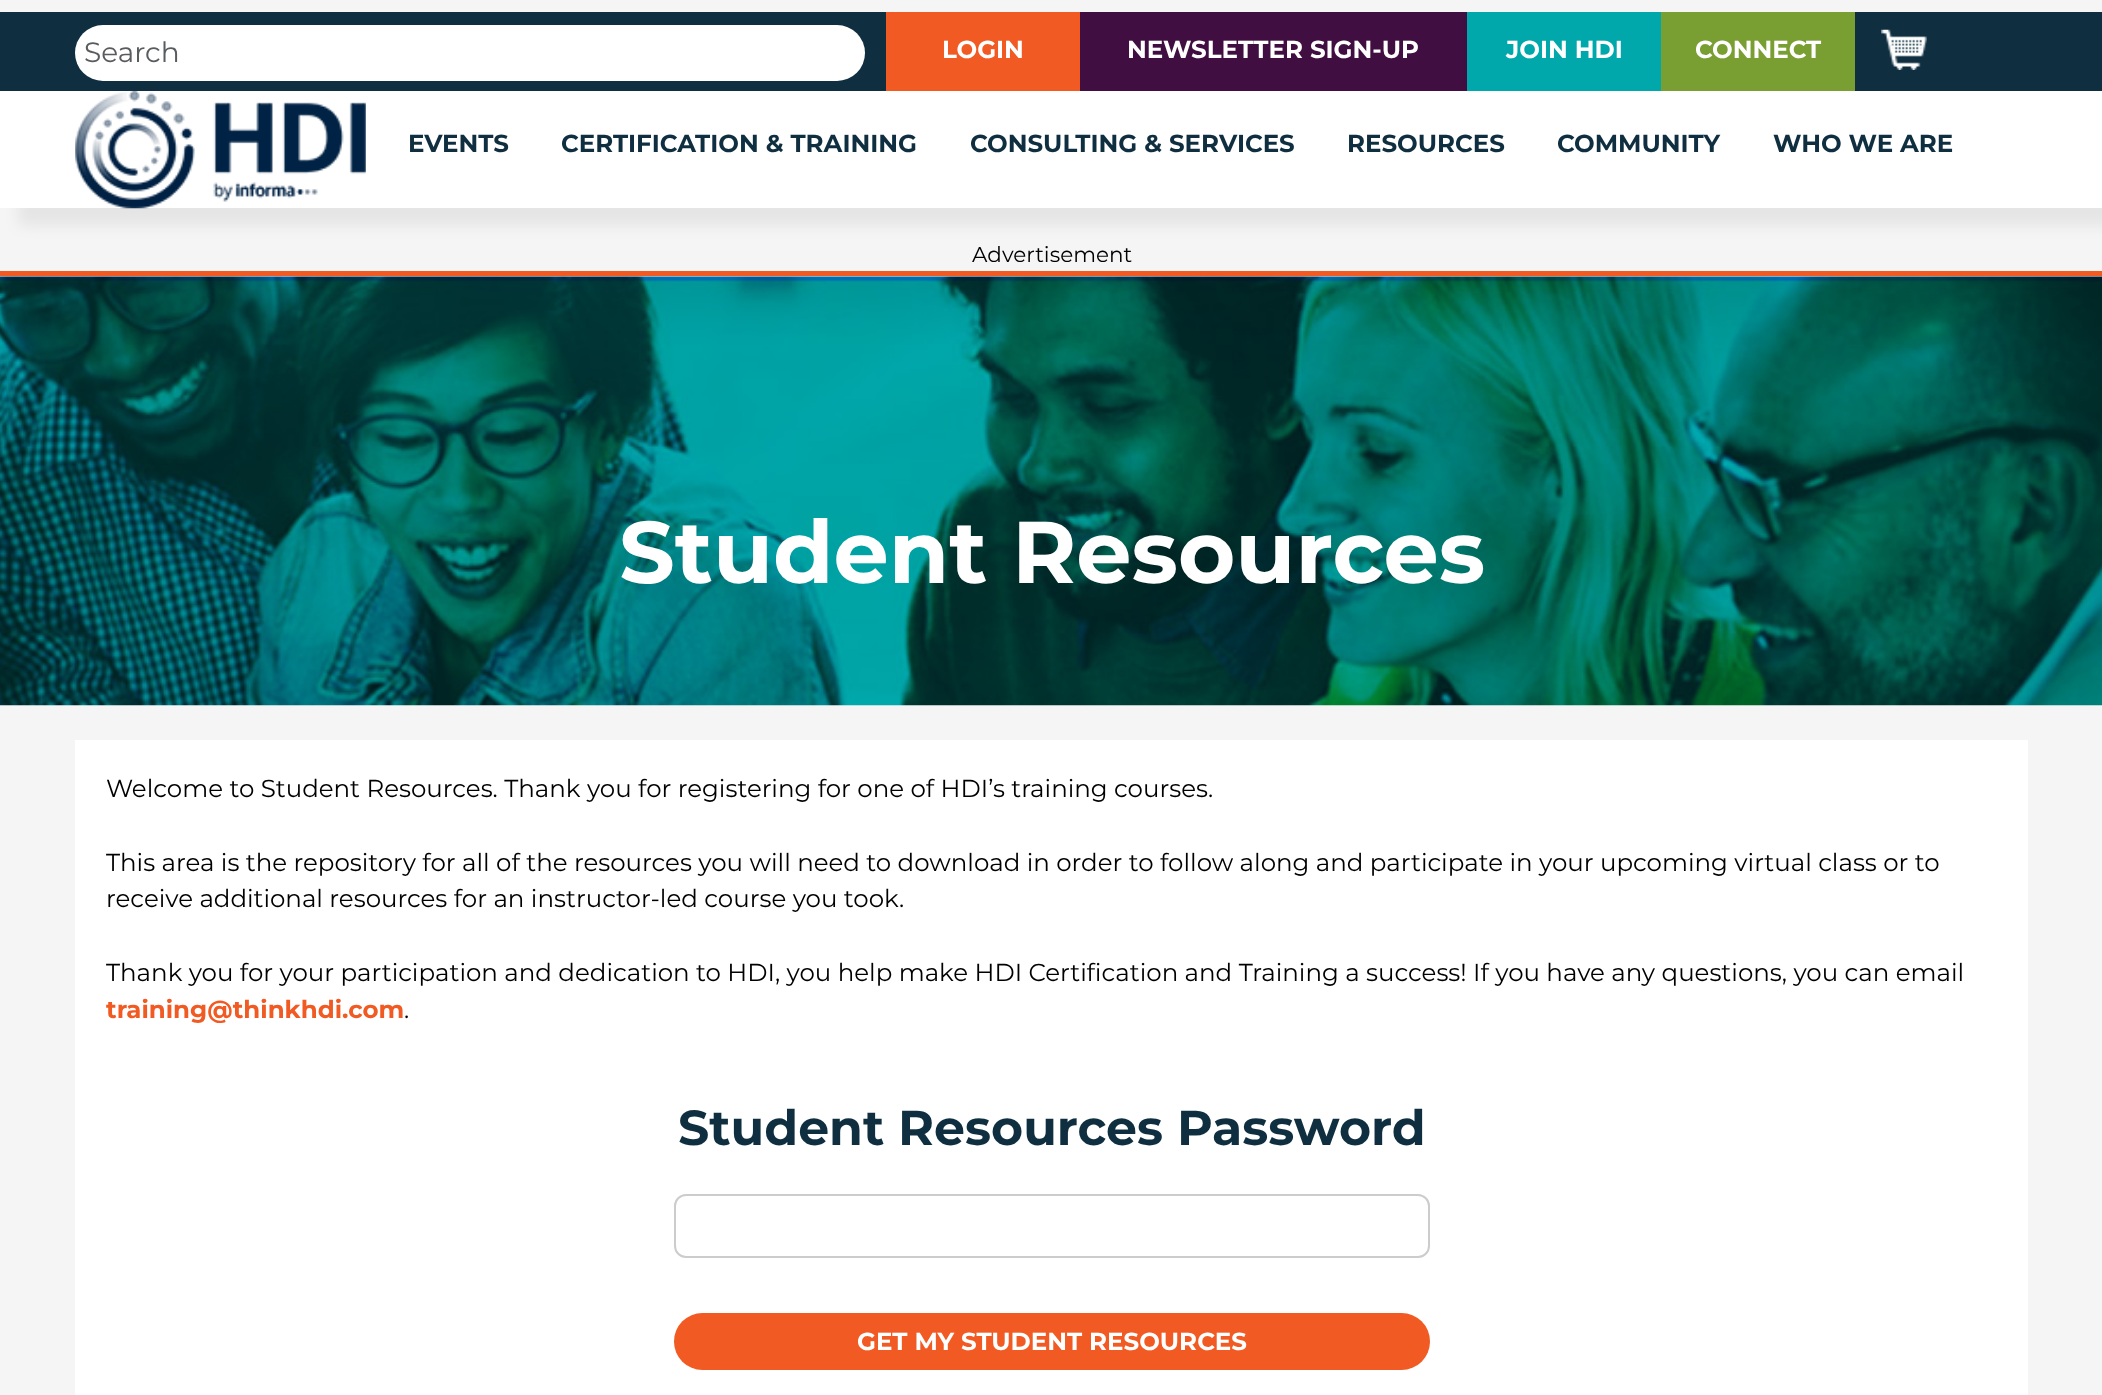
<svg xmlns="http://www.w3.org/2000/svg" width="2102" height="1395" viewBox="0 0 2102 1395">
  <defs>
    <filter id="blur1" x="-50%" y="-200%" width="200%" height="500%"><feGaussianBlur stdDeviation="7"/></filter>
  </defs>
  <rect width="100%" height="100%" fill="#f5f5f5"/>
  <rect x="0" y="12" width="2102" height="79" fill="#0f2f41"/>
  <rect x="75" y="25" width="790" height="56" rx="28" fill="#ffffff"/>
  <text x="84" y="62" font-family="Montserrat" font-size="28" fill="#595c5f">Search</text>
  <rect x="18" y="109" width="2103" height="117" fill="#e5e5e5" filter="url(#blur1)"/>
  <rect x="886" y="12" width="194" height="79" fill="#f15a22"/>
  <text x="942" y="58" font-family="Montserrat" font-size="24.5" font-weight="bold" fill="#ffffff">LOGIN</text>
  <rect x="1080" y="12" width="387" height="79" fill="#400e40"/>
  <text x="1127" y="58" font-family="Montserrat" font-size="24.5" font-weight="bold" fill="#ffffff">NEWSLETTER SIGN-UP</text>
  <rect x="1467" y="12" width="194" height="79" fill="#00a8ac"/>
  <text x="1506" y="58" font-family="Montserrat" font-size="24.5" font-weight="bold" fill="#ffffff">JOIN HDI</text>
  <rect x="1661" y="12" width="194" height="79" fill="#799e31"/>
  <text x="1695" y="58" font-family="Montserrat" font-size="24.5" font-weight="bold" fill="#ffffff">CONNECT</text>
  <image x="1881" y="29" width="46" height="41" href="img1.png"/>
  <rect x="0" y="91" width="2102" height="117" fill="#ffffff"/>
  <image x="75" y="91" width="291" height="118" href="img2.png"/>
  <text x="408" y="152" font-family="Montserrat" font-size="24.5" font-weight="bold" fill="#0f2f41">EVENTS</text>
  <text x="561" y="152" font-family="Montserrat" font-size="24.5" font-weight="bold" fill="#0f2f41">CERTIFICATION &amp; TRAINING</text>
  <text x="970" y="152" font-family="Montserrat" font-size="24.5" font-weight="bold" fill="#0f2f41">CONSULTING &amp; SERVICES</text>
  <text x="1347" y="152" font-family="Montserrat" font-size="24.5" font-weight="bold" fill="#0f2f41">RESOURCES</text>
  <text x="1557" y="152" font-family="Montserrat" font-size="24.5" font-weight="bold" fill="#0f2f41">COMMUNITY</text>
  <text x="1773" y="152" font-family="Montserrat" font-size="24.5" font-weight="bold" fill="#0f2f41">WHO WE ARE</text>
  <text x="972" y="262" font-family="Montserrat" font-size="21.5" fill="#000000">Advertisement</text>
  <image x="0" y="276" width="2102" height="430" href="img3.png"/>
  <rect x="0" y="271" width="2102" height="5" fill="#f15a22"/>
  <text x="619" y="583" font-family="Montserrat" font-size="87.5" font-weight="bold" fill="#ffffff">Student Resources</text>
  <rect x="75" y="740" width="1953" height="655" fill="#ffffff"/>
  <text x="106" y="797" font-family="Montserrat" font-size="24.5" fill="#000000">Welcome to Student Resources. Thank you for registering for one of HDI’s training courses.</text>
  <text x="106" y="871" font-family="Montserrat" font-size="24.5" fill="#000000">This area is the repository for all of the resources you will need to download in order to follow along and participate in your upcoming virtual class or to</text>
  <text x="106" y="907" font-family="Montserrat" font-size="24.5" fill="#000000">receive additional resources for an instructor-led course you took.</text>
  <text x="106" y="981" font-family="Montserrat" font-size="24.5" fill="#000000">Thank you for your participation and dedication to HDI, you help make HDI Certification and Training a success! If you have any questions, you can email</text>
  <text x="106" y="1018" font-family="Montserrat" font-size="24.5" font-weight="bold" fill="#f15a22">training@thinkhdi.com</text>
  <text x="404" y="1018" font-family="Montserrat" font-size="24.5" fill="#000000">.</text>
  <text x="678" y="1145" font-family="Montserrat" font-size="49" font-weight="bold" fill="#0f2f41">Student Resources Password</text>
  <rect x="675" y="1195" width="754" height="62" rx="11" fill="none" stroke="#cccccc" stroke-width="2"/>
  <rect x="674" y="1313" width="756" height="57" rx="28.5" fill="#f15a22"/>
  <text x="857" y="1350" font-family="Montserrat" font-size="24.5" font-weight="bold" fill="#ffffff">GET MY STUDENT RESOURCES</text>
</svg>
